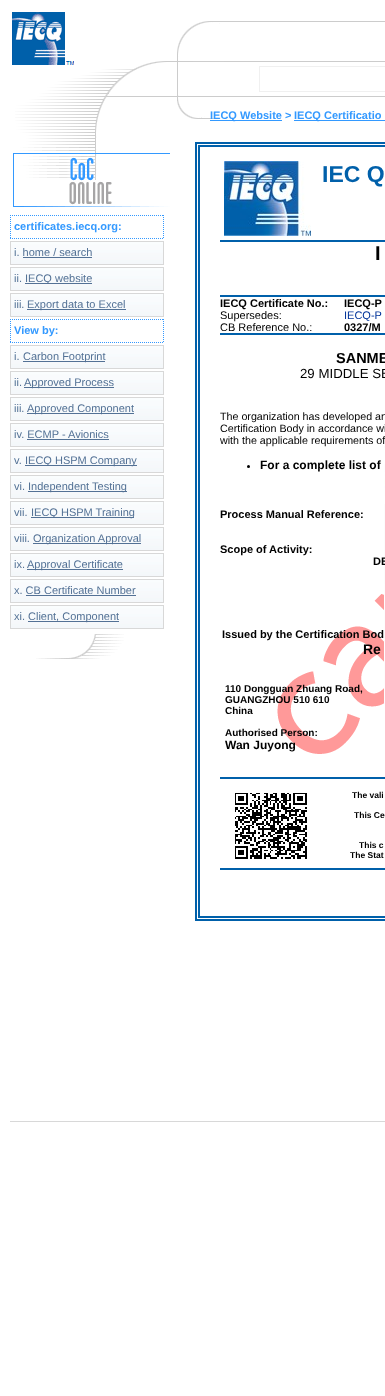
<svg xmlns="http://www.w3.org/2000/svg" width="385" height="1396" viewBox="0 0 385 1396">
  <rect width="100%" height="100%" fill="#ffffff"/>
  <image x="170" y="21" width="215" height="79" href="img3.png"/>
  <rect x="259.5" y="66.5" width="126" height="25" fill="none" stroke="#f0f0f0"/>
  <image x="177" y="97" width="44" height="22" href="img1.png"/>
  <rect x="210" y="120" width="72" height="1" fill="#3399ff"/>
  <text x="210" y="119" font-family="Liberation Sans" font-size="11" font-weight="bold" fill="#3399ff">IECQ Website &gt;</text>
  <rect x="294" y="120" width="91" height="1" fill="#3399ff"/>
  <text x="294" y="119" font-family="Liberation Sans" font-size="11" font-weight="bold" fill="#3399ff">IECQ Certificatio</text>
  <image x="12" y="12" width="158" height="88" href="img2.png"/>
  <image x="15" y="100" width="90" height="47" href="img4.png"/>
  <image x="13" y="147" width="157" height="60" href="img5.png"/>
  <path d="M10 215.5H164" fill="none" stroke="#3399ff" stroke-dasharray="1 1"/>
  <path d="M163.5 215V239" fill="none" stroke="#3399ff" stroke-dasharray="1 1"/>
  <path d="M10 238.5H164" fill="none" stroke="#3399ff" stroke-dasharray="1 1"/>
  <path d="M10.5 215V239" fill="none" stroke="#3399ff" stroke-dasharray="1 1"/>
  <text x="14" y="230" font-family="Liberation Sans" font-size="11" font-weight="bold" fill="#3399ff">certificates.iecq.org:</text>
  <image x="11" y="242" width="152" height="22" href="img6.png"/>
  <rect x="10.5" y="241.5" width="153" height="23" fill="none" stroke="#d8d8d8"/>
  <text x="14" y="256" font-family="Liberation Sans" font-size="11" fill="#537195">i. home / search</text>
  <rect x="23" y="257" width="69" height="1" fill="#537195"/>
  <image x="11" y="268" width="152" height="22" href="img6.png"/>
  <rect x="10.5" y="267.5" width="153" height="23" fill="none" stroke="#d8d8d8"/>
  <text x="14" y="282" font-family="Liberation Sans" font-size="11" fill="#537195">ii.</text>
  <rect x="25" y="283" width="67" height="1" fill="#537195"/>
  <text x="25" y="282" font-family="Liberation Sans" font-size="11" fill="#537195">IECQ website</text>
  <image x="11" y="294" width="152" height="22" href="img6.png"/>
  <rect x="10.5" y="293.5" width="153" height="23" fill="none" stroke="#d8d8d8"/>
  <text x="14" y="308" font-family="Liberation Sans" font-size="11" fill="#537195">iii.</text>
  <rect x="27" y="309" width="99" height="1" fill="#537195"/>
  <text x="27" y="308" font-family="Liberation Sans" font-size="11" fill="#537195">Export data to Excel</text>
  <path d="M10 319.5H164" fill="none" stroke="#3399ff" stroke-dasharray="1 1"/>
  <path d="M163.5 319V343" fill="none" stroke="#3399ff" stroke-dasharray="1 1"/>
  <path d="M10 342.5H164" fill="none" stroke="#3399ff" stroke-dasharray="1 1"/>
  <path d="M10.5 319V343" fill="none" stroke="#3399ff" stroke-dasharray="1 1"/>
  <text x="14" y="334" font-family="Liberation Sans" font-size="11" font-weight="bold" fill="#3399ff">View by:</text>
  <image x="11" y="346" width="152" height="22" href="img6.png"/>
  <rect x="10.5" y="345.5" width="153" height="23" fill="none" stroke="#d8d8d8"/>
  <text x="14" y="360" font-family="Liberation Sans" font-size="11" fill="#537195">i.</text>
  <rect x="23" y="361" width="82" height="1" fill="#537195"/>
  <text x="23" y="360" font-family="Liberation Sans" font-size="11" fill="#537195">Carbon Footprint</text>
  <image x="11" y="372" width="152" height="22" href="img6.png"/>
  <rect x="10.5" y="371.5" width="153" height="23" fill="none" stroke="#d8d8d8"/>
  <text x="14" y="386" font-family="Liberation Sans" font-size="11" fill="#537195">ii.</text>
  <rect x="24" y="387" width="90" height="1" fill="#537195"/>
  <text x="24" y="386" font-family="Liberation Sans" font-size="11" fill="#537195">Approved Process</text>
  <image x="11" y="398" width="152" height="22" href="img6.png"/>
  <rect x="10.5" y="397.5" width="153" height="23" fill="none" stroke="#d8d8d8"/>
  <text x="14" y="412" font-family="Liberation Sans" font-size="11" fill="#537195">iii.</text>
  <rect x="27" y="413" width="107" height="1" fill="#537195"/>
  <text x="27" y="412" font-family="Liberation Sans" font-size="11" fill="#537195">Approved Component</text>
  <image x="11" y="424" width="152" height="22" href="img6.png"/>
  <rect x="10.5" y="423.5" width="153" height="23" fill="none" stroke="#d8d8d8"/>
  <text x="14" y="438" font-family="Liberation Sans" font-size="11" fill="#537195">iv. ECMP - Avionics</text>
  <rect x="27" y="439" width="82" height="1" fill="#537195"/>
  <image x="11" y="450" width="152" height="22" href="img6.png"/>
  <rect x="10.5" y="449.5" width="153" height="23" fill="none" stroke="#d8d8d8"/>
  <text x="14" y="464" font-family="Liberation Sans" font-size="11" fill="#537195">v.</text>
  <rect x="25" y="465" width="112" height="1" fill="#537195"/>
  <text x="25" y="464" font-family="Liberation Sans" font-size="11" fill="#537195">IECQ HSPM Company</text>
  <image x="11" y="476" width="152" height="22" href="img6.png"/>
  <rect x="10.5" y="475.5" width="153" height="23" fill="none" stroke="#d8d8d8"/>
  <text x="14" y="490" font-family="Liberation Sans" font-size="11" fill="#537195">vi.</text>
  <rect x="28" y="491" width="99" height="1" fill="#537195"/>
  <text x="28" y="490" font-family="Liberation Sans" font-size="11" fill="#537195">Independent Testing</text>
  <image x="11" y="502" width="152" height="22" href="img6.png"/>
  <rect x="10.5" y="501.5" width="153" height="23" fill="none" stroke="#d8d8d8"/>
  <text x="14" y="516" font-family="Liberation Sans" font-size="11" fill="#537195">vii.</text>
  <rect x="31" y="517" width="103" height="1" fill="#537195"/>
  <text x="31" y="516" font-family="Liberation Sans" font-size="11" fill="#537195">IECQ HSPM Training</text>
  <image x="11" y="528" width="152" height="22" href="img6.png"/>
  <rect x="10.5" y="527.5" width="153" height="23" fill="none" stroke="#d8d8d8"/>
  <text x="14" y="542" font-family="Liberation Sans" font-size="11" fill="#537195">viii.</text>
  <rect x="33" y="543" width="108" height="1" fill="#537195"/>
  <text x="33" y="542" font-family="Liberation Sans" font-size="11" fill="#537195">Organization Approval</text>
  <image x="11" y="554" width="152" height="22" href="img6.png"/>
  <rect x="10.5" y="553.5" width="153" height="23" fill="none" stroke="#d8d8d8"/>
  <text x="14" y="568" font-family="Liberation Sans" font-size="11" fill="#537195">ix.</text>
  <rect x="27" y="569" width="96" height="1" fill="#537195"/>
  <text x="27" y="568" font-family="Liberation Sans" font-size="11" fill="#537195">Approval Certificate</text>
  <image x="11" y="580" width="152" height="22" href="img6.png"/>
  <rect x="10.5" y="579.5" width="153" height="23" fill="none" stroke="#d8d8d8"/>
  <text x="14" y="594" font-family="Liberation Sans" font-size="11" fill="#537195">x. CB Certificate Number</text>
  <rect x="26" y="595" width="110" height="1" fill="#537195"/>
  <image x="11" y="606" width="152" height="22" href="img6.png"/>
  <rect x="10.5" y="605.5" width="153" height="23" fill="none" stroke="#d8d8d8"/>
  <text x="14" y="620" font-family="Liberation Sans" font-size="11" fill="#537195">xi.</text>
  <rect x="28" y="621" width="91" height="1" fill="#537195"/>
  <text x="28" y="620" font-family="Liberation Sans" font-size="11" fill="#537195">Client, Component</text>
  <image x="36" y="634" width="88" height="25" href="img7.png"/>
  <image x="384" y="446" width="1" height="258" href="img8.png"/>
  <image x="277" y="594" width="107" height="160" href="img11.png"/>
  <rect x="196" y="143" width="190" height="777" fill="none" stroke="#0060aa" stroke-width="2"/>
  <rect x="199" y="146" width="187" height="771" fill="none" stroke="#0060aa" stroke-width="2"/>
  <image x="224" y="161" width="87" height="75" href="img9.png"/>
  <text x="322" y="182" font-family="Liberation Sans" font-size="23" font-weight="bold" fill="#0060aa">IEC Q</text>
  <rect x="220" y="240" width="165" height="2" fill="#0060aa"/>
  <rect x="220" y="295" width="165" height="2" fill="#0060aa"/>
  <text x="375" y="260" font-family="Liberation Sans" font-size="20" font-weight="bold" fill="#000000">I</text>
  <text x="220" y="307" font-family="Liberation Sans" font-size="11" font-weight="bold" fill="#000000">IECQ Certificate No.:</text>
  <text x="344" y="307" font-family="Liberation Sans" font-size="11" font-weight="bold" fill="#000000">IECQ-P</text>
  <text x="220" y="319" font-family="Liberation Sans" font-size="11" fill="#000000">Supersedes:</text>
  <text x="344" y="319" font-family="Liberation Sans" font-size="11" fill="#003399">IECQ-P</text>
  <text x="220" y="331" font-family="Liberation Sans" font-size="11" fill="#000000">CB Reference No.:</text>
  <text x="344" y="331" font-family="Liberation Sans" font-size="11" font-weight="bold" fill="#000000">0327/M</text>
  <rect x="220" y="333" width="165" height="2" fill="#0060aa"/>
  <text x="336" y="363" font-family="Liberation Sans" font-size="14.5" font-weight="bold" fill="#000000">SANME</text>
  <text x="300" y="378" font-family="Liberation Sans" font-size="13.25" fill="#000000">29 MIDDLE SE</text>
  <text x="220" y="420" font-family="Liberation Sans" font-size="10.7" fill="#000000">The organization has developed an</text>
  <text x="220" y="432" font-family="Liberation Sans" font-size="10.7" fill="#000000">Certification Body in accordance wi</text>
  <text x="220" y="444" font-family="Liberation Sans" font-size="10.7" fill="#000000">with the applicable requirements of</text>
  <circle cx="248.5" cy="466.5" r="1.5" fill="#000000"/>
  <text x="260" y="469" font-family="Liberation Sans" font-size="12" font-weight="bold" fill="#000000">For a complete list of</text>
  <text x="220" y="518" font-family="Liberation Sans" font-size="11" font-weight="bold" fill="#000000">Process Manual Reference:</text>
  <text x="220" y="553" font-family="Liberation Sans" font-size="11" font-weight="bold" fill="#000000">Scope of Activity:</text>
  <text x="373" y="565" font-family="Liberation Sans" font-size="11" font-weight="bold" fill="#000000">DE</text>
  <text x="222" y="638" font-family="Liberation Sans" font-size="11" font-weight="bold" fill="#000000">Issued by the Certification Bod</text>
  <text x="363" y="654" font-family="Liberation Sans" font-size="14" font-weight="bold" fill="#000000">Re</text>
  <text x="225" y="692" font-family="Liberation Sans" font-size="10" font-weight="bold" fill="#000000">110 Dongguan Zhuang Road,</text>
  <text x="225" y="703" font-family="Liberation Sans" font-size="10" font-weight="bold" fill="#000000">GUANGZHOU 510 610</text>
  <text x="225" y="714" font-family="Liberation Sans" font-size="10" font-weight="bold" fill="#000000">China</text>
  <text x="225" y="736" font-family="Liberation Sans" font-size="10" font-weight="bold" fill="#000000">Authorised Person:</text>
  <text x="225" y="749" font-family="Liberation Sans" font-size="12" font-weight="bold" fill="#000000">Wan Juyong</text>
  <rect x="220" y="777" width="165" height="2" fill="#0060aa"/>
  <rect x="220" y="868" width="165" height="2" fill="#0060aa"/>
  <image x="235" y="793" width="72" height="66" href="img10.png"/>
  <text x="352" y="798" font-family="Liberation Sans" font-size="8.5" font-weight="bold" fill="#000000">The vali</text>
  <text x="354" y="818" font-family="Liberation Sans" font-size="8.5" font-weight="bold" fill="#000000">This Ce</text>
  <text x="359" y="848" font-family="Liberation Sans" font-size="8.5" font-weight="bold" fill="#000000">This c</text>
  <text x="350" y="858" font-family="Liberation Sans" font-size="8.5" font-weight="bold" fill="#000000">The Stat</text>
  <rect x="10" y="1121" width="375" height="1" fill="#d8d8d8"/>
</svg>
